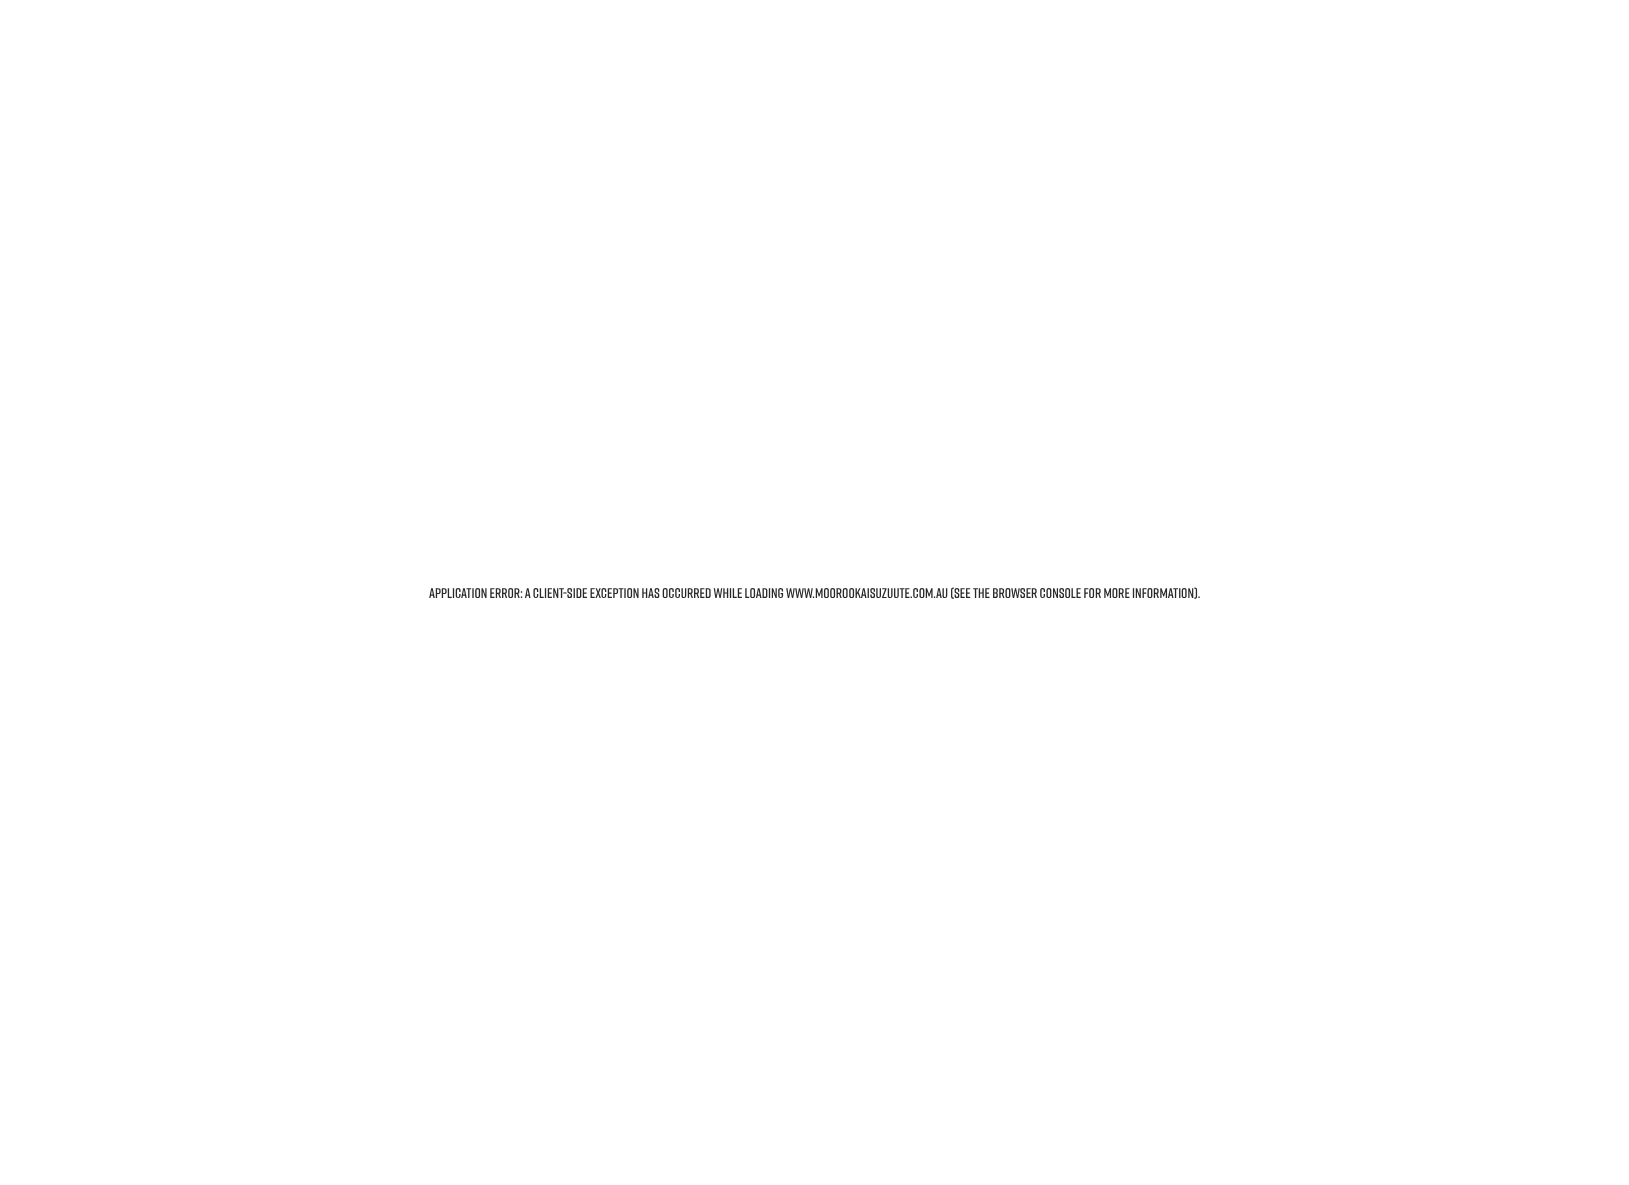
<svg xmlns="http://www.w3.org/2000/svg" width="1629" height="1185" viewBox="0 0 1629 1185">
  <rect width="100%" height="100%" fill="#ffffff"/>
  <text x="429" y="598" font-family="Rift" font-size="14" font-weight="600" fill="#282828">Application error: a client</text>
  <text x="563" y="598" font-family="Rift" font-size="14" font-weight="600" fill="#282828">-side exception has occurred while loading www.moorookaisuzuute.com.au (see the browser console for more information).</text>
</svg>
